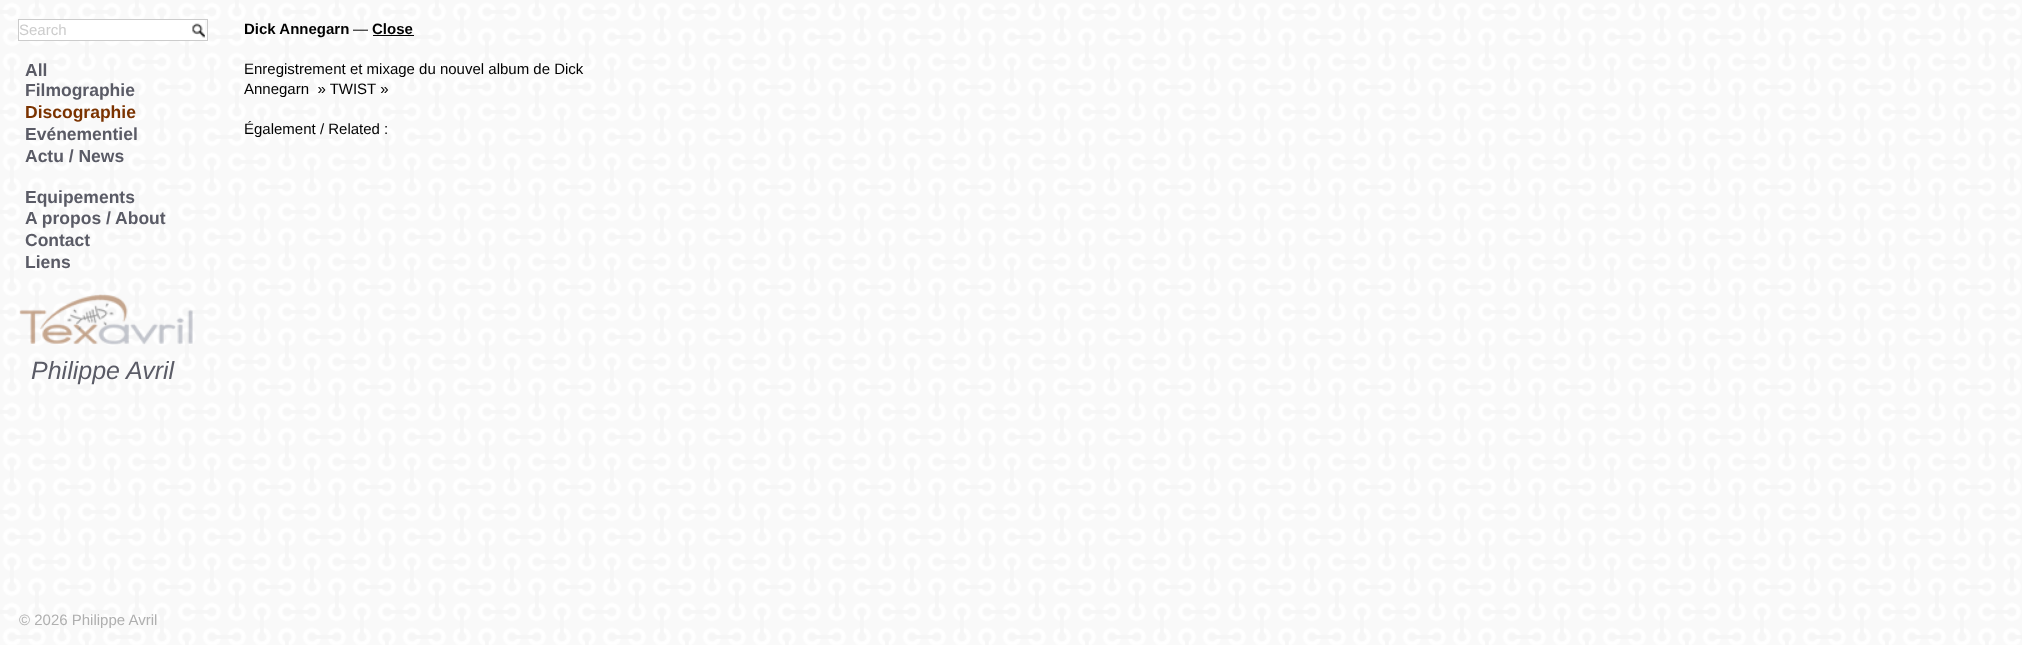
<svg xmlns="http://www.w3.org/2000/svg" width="2022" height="645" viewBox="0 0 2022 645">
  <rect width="100%" height="100%" fill="#ffffff"/>
  <image x="0" y="0" width="2022" height="645" href="img1.png"/>
  <rect x="19" y="20" width="186" height="20" fill="#ffffff"/>
  <image x="192" y="23" width="13" height="15" href="img2.png"/>
  <rect x="18.5" y="19.5" width="189" height="21" fill="none" stroke="#cccccc"/>
  <text x="19" y="35" font-family="Liberation Sans" font-size="15" fill="#cccccc">Search</text>
  <text x="25" y="76" font-family="Liberation Sans" font-size="17.5" font-weight="bold" fill="#5a5b66">All</text>
  <text x="25" y="96" font-family="Liberation Sans" font-size="17.5" font-weight="bold" fill="#5a5b66">Filmographie</text>
  <text x="25" y="118" font-family="Liberation Sans" font-size="17.5" font-weight="bold" fill="#7b3300">Discographie</text>
  <text x="25" y="140" font-family="Liberation Sans" font-size="17.5" font-weight="bold" fill="#5a5b66">Evénementiel</text>
  <text x="25" y="162" font-family="Liberation Sans" font-size="17.5" font-weight="bold" fill="#5a5b66">Actu / News</text>
  <text x="25" y="203" font-family="Liberation Sans" font-size="17.5" font-weight="bold" fill="#5a5b66">Equipements</text>
  <text x="25" y="224" font-family="Liberation Sans" font-size="17.5" font-weight="bold" fill="#5a5b66">A propos / About</text>
  <text x="25" y="246" font-family="Liberation Sans" font-size="17.5" font-weight="bold" fill="#5a5b66">Contact</text>
  <text x="25" y="268" font-family="Liberation Sans" font-size="17.5" font-weight="bold" fill="#5a5b66">Liens</text>
  <image x="19" y="294" width="174" height="51" href="img3.png"/>
  <text x="31" y="379" font-family="Liberation Sans" font-size="25" font-style="italic" fill="#5a5b66">Philippe Avril</text>
  <text x="244" y="34" font-family="Liberation Sans" font-size="15" font-weight="bold" fill="#000000">Dick Annegarn</text>
  <text x="353" y="34" font-family="Liberation Sans" font-size="15" fill="#000000">—</text>
  <text x="372" y="34" font-family="Liberation Sans" font-size="15" font-weight="bold" fill="#000000">Close</text>
  <rect x="373" y="35" width="41" height="1" fill="#000000"/>
  <text x="244" y="74" font-family="Liberation Sans" font-size="15" fill="#000000">Enregistrement et mixage du nouvel album de Dick</text>
  <text x="244" y="94" font-family="Liberation Sans" font-size="15" fill="#000000" xml:space="preserve">Annegarn  » TWIST »</text>
  <text x="244" y="134" font-family="Liberation Sans" font-size="15" fill="#000000">Également / Related :</text>
  <text x="19" y="625" font-family="Liberation Sans" font-size="15" fill="#afafaf">© 2026 Philippe Avril</text>
</svg>
